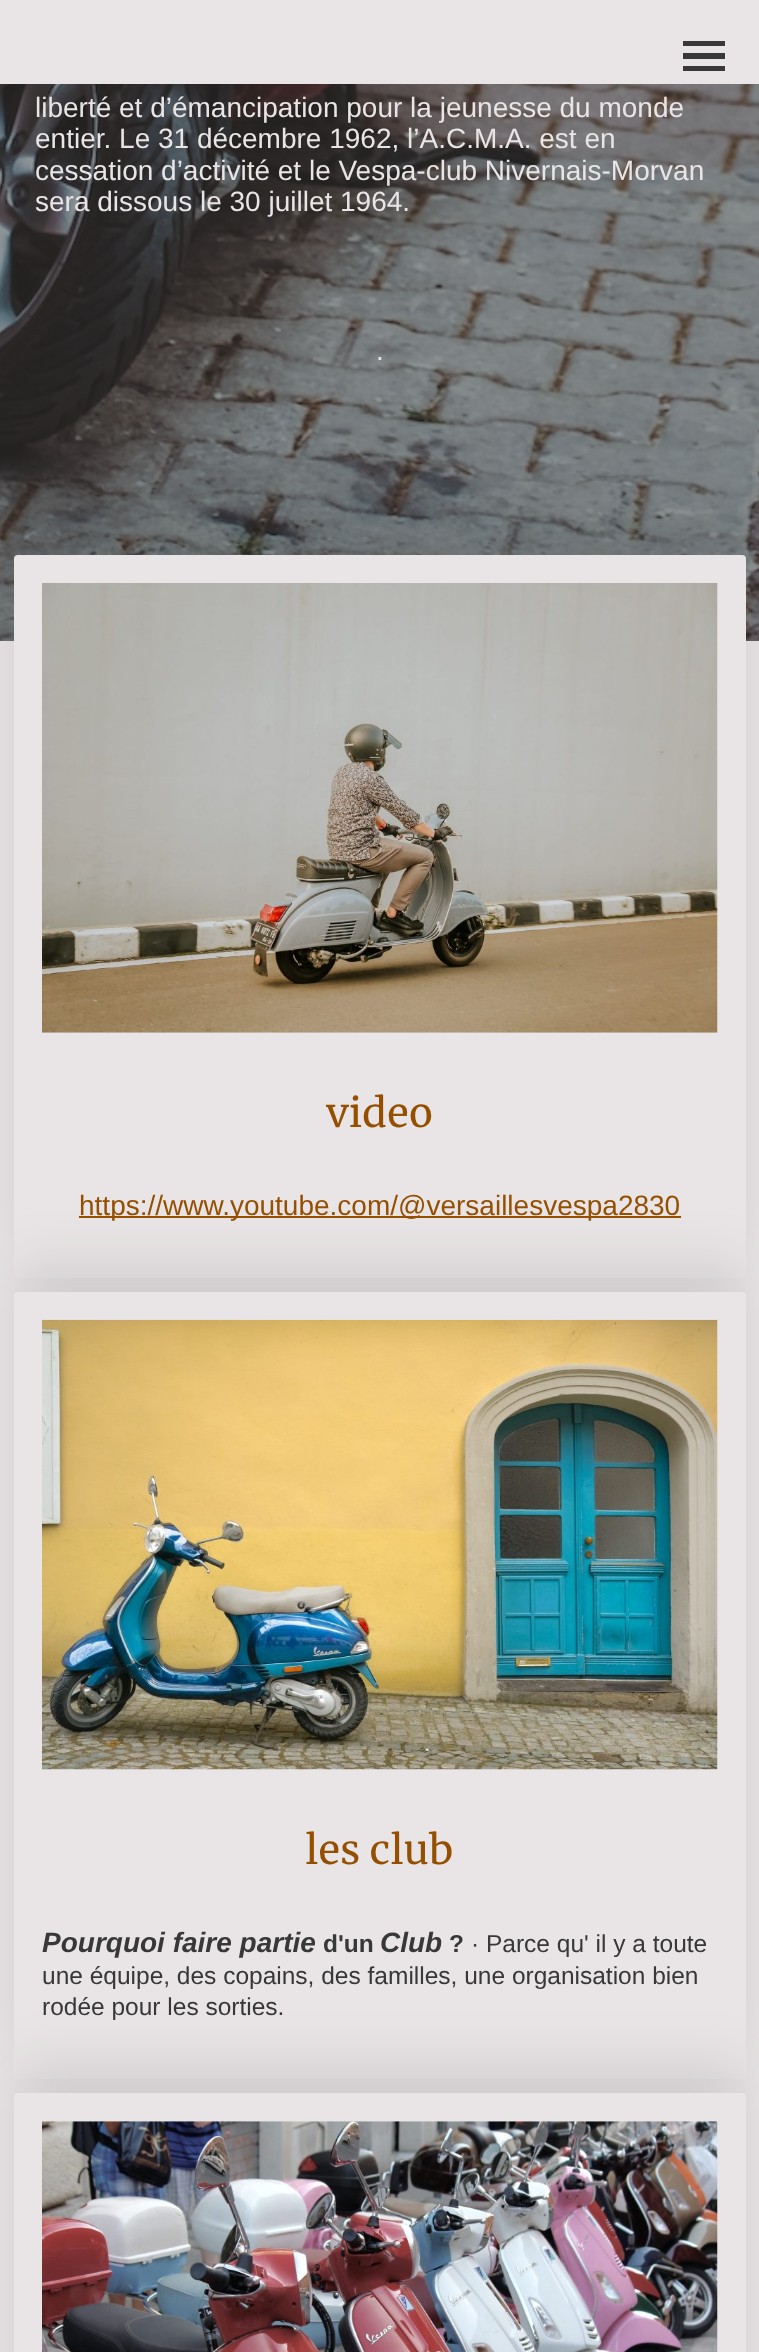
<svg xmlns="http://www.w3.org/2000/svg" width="759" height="2352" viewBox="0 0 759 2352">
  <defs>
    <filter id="blur1" x="-50%" y="-200%" width="200%" height="500%"><feGaussianBlur stdDeviation="28"/></filter>
  </defs>
  <rect width="100%" height="100%" fill="#e9e5e6"/>
  <rect x="683" y="41" width="42" height="5" fill="#383838"/>
  <rect x="683" y="53" width="42" height="6" fill="#383838"/>
  <rect x="683" y="66" width="42" height="5" fill="#383838"/>
  <image x="0" y="84" width="759" height="557" href="img1.png"/>
  <text x="35" y="117" font-family="Liberation Sans" font-size="28" fill="#e9e5e6">liberté et d’émancipation pour la jeunesse du monde</text>
  <text x="35" y="148" font-family="Liberation Sans" font-size="28" fill="#e9e5e6">entier. Le 31 décembre 1962, l’A.C.M.A. est en</text>
  <text x="35" y="180" font-family="Liberation Sans" font-size="28" fill="#e9e5e6">cessation d’activité et le Vespa-club Nivernais-Morvan</text>
  <text x="35" y="211" font-family="Liberation Sans" font-size="28" fill="#e9e5e6">sera dissous le 30 juillet 1964.</text>
  <text x="376" y="360" font-family="Liberation Sans" font-size="28" fill="#e9e5e6">.</text>
  <rect x="14" y="527" width="732" height="723" rx="4" fill="#000000" fill-opacity="0.1" filter="url(#blur1)"/>
  <rect x="14" y="555" width="732" height="723" rx="4" fill="#e9e5e6"/>
  <image x="42" y="583" width="676" height="450" href="img2.png"/>
  <text x="326" y="1127" font-family="Merriweather" font-size="40" fill="#954f00">video</text>
  <rect x="79" y="1216" width="602" height="2" fill="#954f00"/>
  <text x="79" y="1215" font-family="Liberation Sans" font-size="28" fill="#954f00">https://www.youtube.com/@versaillesvespa2830</text>
  <rect x="14" y="1264" width="732" height="787" rx="4" fill="#000000" fill-opacity="0.1" filter="url(#blur1)"/>
  <rect x="14" y="1292" width="732" height="787" rx="4" fill="#e9e5e6"/>
  <image x="42" y="1319" width="676" height="451" href="img3.png"/>
  <text x="305" y="1864" font-family="Merriweather" font-size="40" fill="#954f00">les club</text>
  <text x="42" y="1952" font-family="Liberation Sans" font-size="28" font-weight="bold" font-style="italic" fill="#383838">Pourquoi faire partie</text>
  <text x="323" y="1952" font-family="Liberation Sans" font-size="24.5" font-weight="bold" fill="#383838">d'un</text>
  <text x="380" y="1952" font-family="Liberation Sans" font-size="28" font-weight="bold" font-style="italic" fill="#383838">Club</text>
  <text x="449" y="1952" font-family="Liberation Sans" font-size="24.5" font-weight="bold" fill="#383838">?</text>
  <text x="471" y="1952" font-family="Liberation Sans" font-size="24.5" fill="#383838">· Parce qu' il y a toute</text>
  <text x="42" y="1984" font-family="Liberation Sans" font-size="24.5" fill="#383838">une équipe, des copains, des familles, une organisation bien</text>
  <text x="42" y="2015" font-family="Liberation Sans" font-size="24.5" fill="#383838">rodée pour les sorties.</text>
  <rect x="14" y="2065" width="732" height="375" rx="4" fill="#000000" fill-opacity="0.1" filter="url(#blur1)"/>
  <rect x="14" y="2093" width="732" height="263" rx="4" fill="#e9e5e6"/>
  <image x="42" y="2121" width="676" height="231" href="img4.png"/>
</svg>
